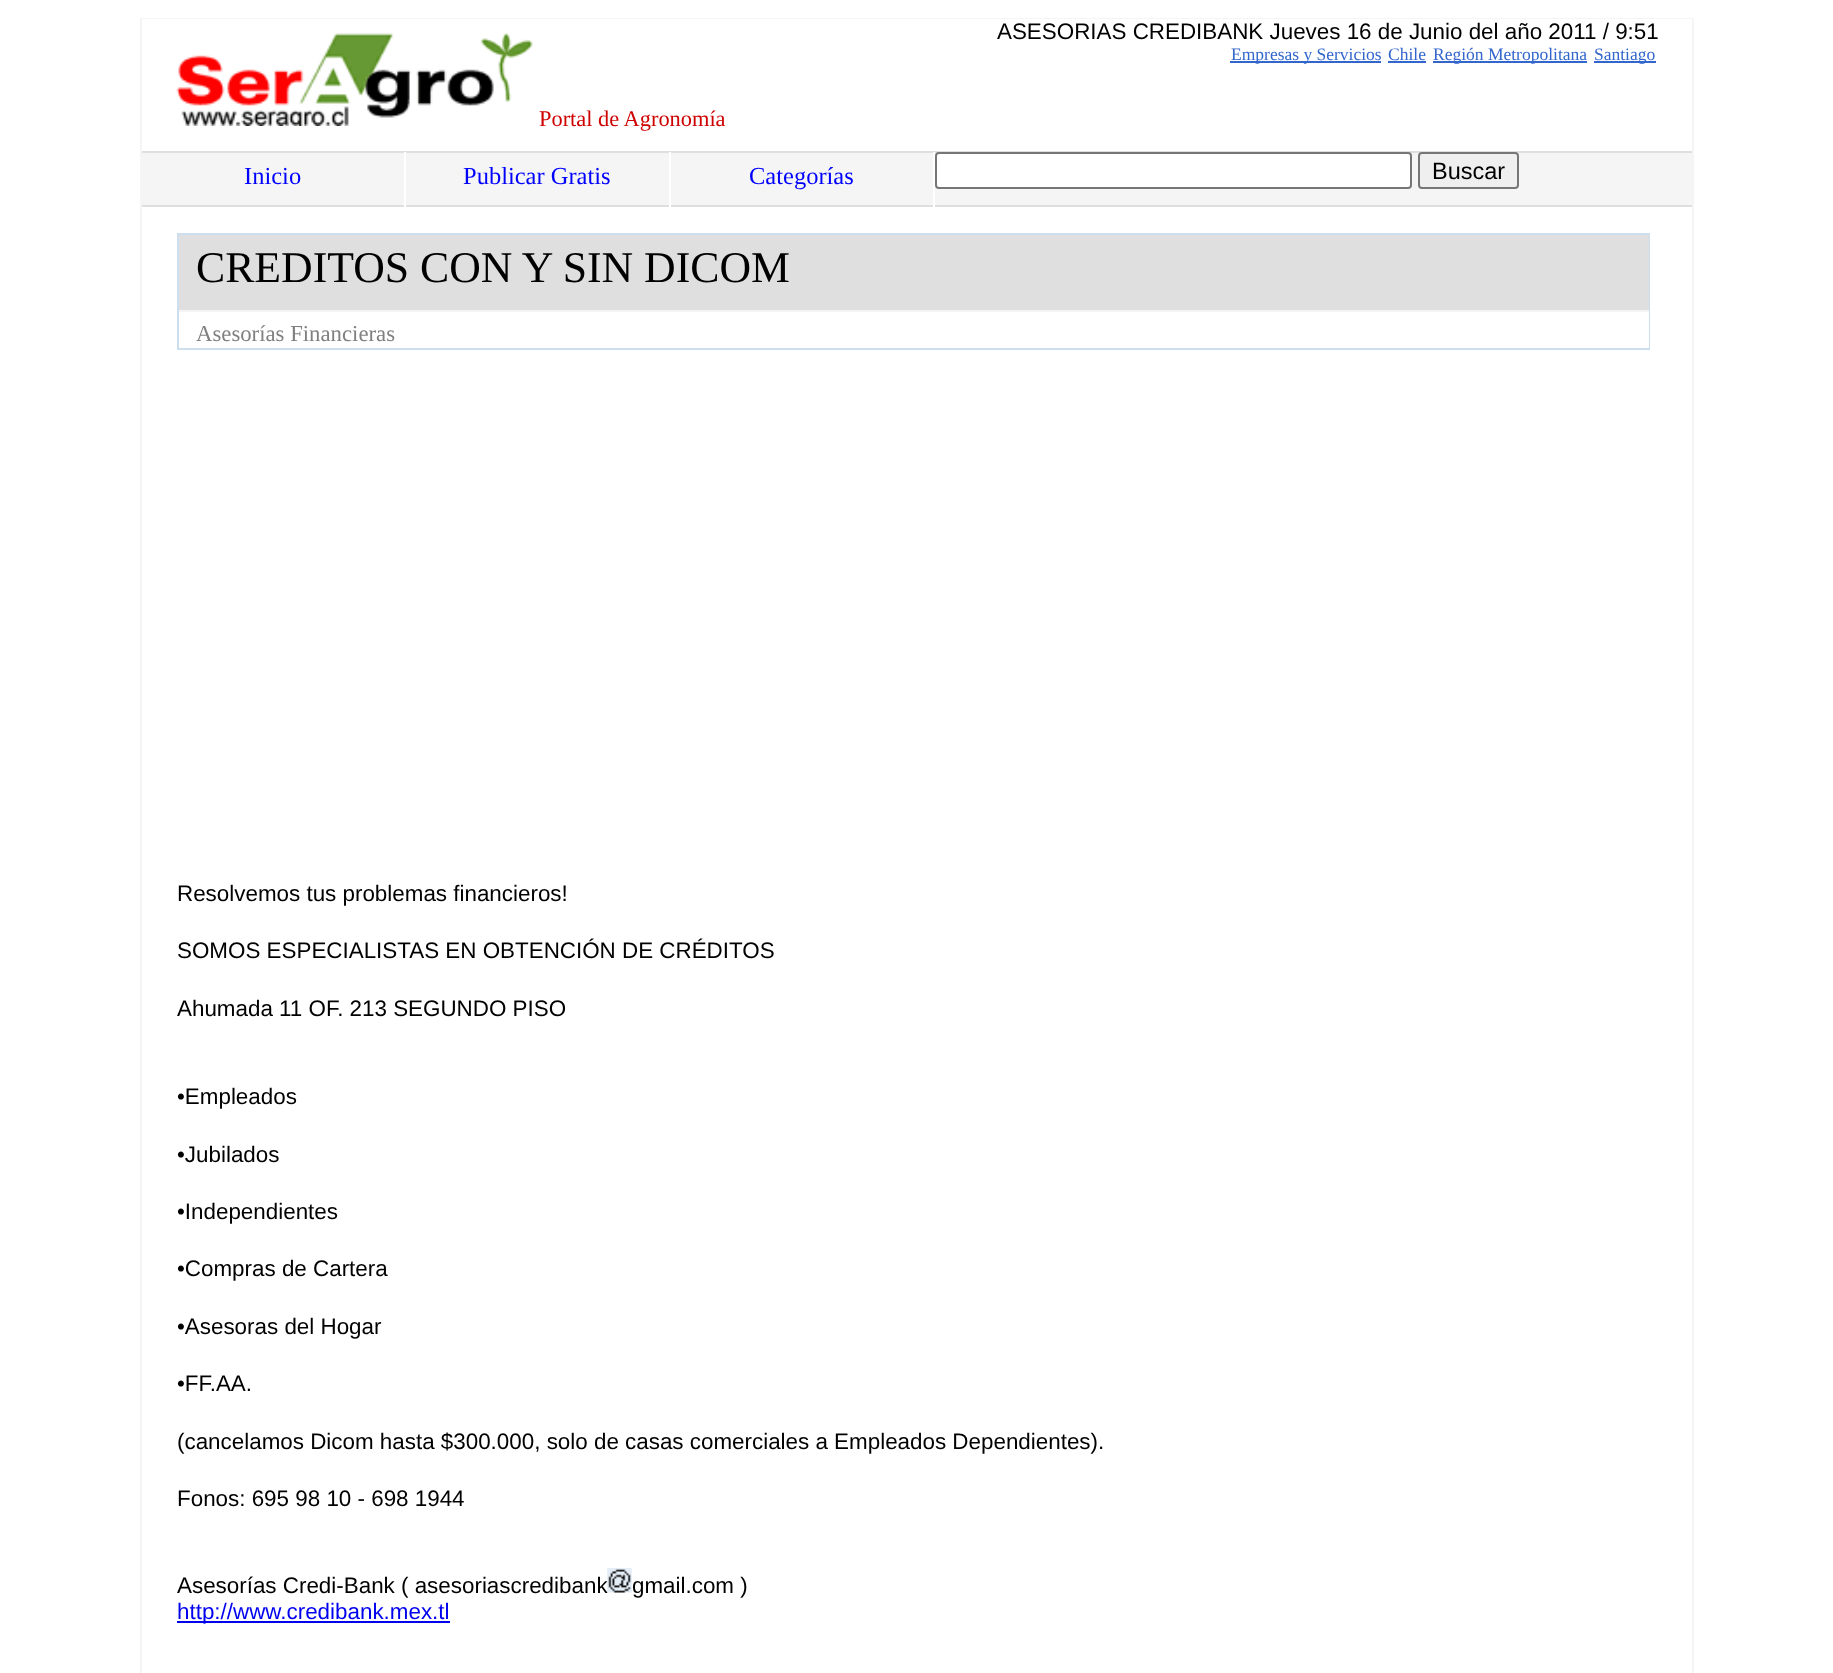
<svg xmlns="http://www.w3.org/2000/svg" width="1833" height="1673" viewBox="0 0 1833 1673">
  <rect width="100%" height="100%" fill="#ffffff"/>
  <rect x="141" y="19" width="1552" height="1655" fill="none" stroke="#f5f5f5" stroke-width="2"/>
  <rect x="178" y="234" width="1471" height="115" fill="none" stroke="#cddfef" stroke-width="2"/>
  <text x="997" y="39" font-family="Liberation Sans" font-size="22.4" fill="#000000">ASESORIAS CREDIBANK Jueves 16 de Junio del año 2011 / 9:51</text>
  <rect x="1648" y="312" width="1" height="36" fill="#ffffff"/>
  <rect x="1230" y="61" width="151" height="2" fill="#3366cc"/>
  <text x="1231" y="60" font-family="Liberation Serif" font-size="17.5" fill="#3366cc">Empresas y Servicios</text>
  <text x="1388" y="60" font-family="Liberation Serif" font-size="17.5" fill="#3366cc">Chile</text>
  <rect x="1388" y="61" width="38" height="2" fill="#3366cc"/>
  <rect x="1433" y="61" width="154" height="2" fill="#3366cc"/>
  <text x="1433" y="60" font-family="Liberation Serif" font-size="17.5" fill="#3366cc">Región Metropolitana</text>
  <rect x="1594" y="61" width="62" height="2" fill="#3366cc"/>
  <text x="1594" y="60" font-family="Liberation Serif" font-size="17.5" fill="#3366cc">Santiago</text>
  <text x="196" y="341" font-family="Liberation Serif" font-size="22.75" fill="#808080">Asesorías Financieras</text>
  <rect x="179" y="235" width="1470" height="75" fill="#dfdfdf"/>
  <rect x="179" y="310" width="1470" height="2" fill="#f5f5f5"/>
  <text x="196" y="282" font-family="Liberation Serif" font-size="43.75" fill="#000000">CREDITOS CON Y SIN DICOM</text>
  <text x="177" y="901" font-family="Liberation Sans" font-size="22.4" fill="#000000">Resolvemos tus problemas financieros!</text>
  <text x="177" y="958" font-family="Liberation Sans" font-size="22.4" fill="#000000">SOMOS ESPECIALISTAS EN OBTENCIÓN DE CRÉDITOS</text>
  <text x="177" y="1016" font-family="Liberation Sans" font-size="22.4" fill="#000000">Ahumada 11 OF. 213 SEGUNDO PISO</text>
  <text x="177" y="1104" font-family="Liberation Sans" font-size="22.4" fill="#000000">•Empleados</text>
  <text x="177" y="1162" font-family="Liberation Sans" font-size="22.4" fill="#000000">•Jubilados</text>
  <text x="177" y="1219" font-family="Liberation Sans" font-size="22.4" fill="#000000">•Independientes</text>
  <text x="177" y="1276" font-family="Liberation Sans" font-size="22.4" fill="#000000">•Compras de Cartera</text>
  <text x="177" y="1334" font-family="Liberation Sans" font-size="22.4" fill="#000000">•Asesoras del Hogar</text>
  <text x="177" y="1391" font-family="Liberation Sans" font-size="22.4" fill="#000000">•FF.AA.</text>
  <text x="177" y="1449" font-family="Liberation Sans" font-size="22.4" fill="#000000">(cancelamos Dicom hasta $300.000, solo de casas comerciales a Empleados Dependientes).</text>
  <text x="177" y="1506" font-family="Liberation Sans" font-size="22.4" fill="#000000">Fonos: 695 98 10 - 698 1944</text>
  <text x="177" y="1593" font-family="Liberation Sans" font-size="22.4" fill="#000000">Asesorías Credi-Bank ( asesoriascredibank</text>
  <image x="607" y="1568" width="25" height="25" href="img1.png"/>
  <text x="632" y="1593" font-family="Liberation Sans" font-size="22.4" fill="#000000">gmail.com )</text>
  <rect x="177" y="1621" width="273" height="2" fill="#0000ee"/>
  <text x="177" y="1619" font-family="Liberation Sans" font-size="22.4" fill="#0000ee">http://www.credibank.mex.tl</text>
  <rect x="142" y="19" width="1550" height="1" fill="#ffffff"/>
  <image x="176" y="32" width="357" height="94" href="img2.png"/>
  <text x="539" y="126" font-family="Liberation Serif" font-size="22.4" fill="#cf0000">Portal de Agronomía</text>
  <rect x="142" y="153" width="1550" height="52" fill="#f5f5f5"/>
  <rect x="142" y="151" width="1550" height="2" fill="#dfdfdf"/>
  <rect x="142" y="205" width="1550" height="2" fill="#dfdfdf"/>
  <rect x="404" y="152" width="2" height="63" fill="#ffffff"/>
  <text x="244" y="184" font-family="Liberation Serif" font-size="24.5" fill="#0000ff">Inicio</text>
  <rect x="669" y="152" width="2" height="63" fill="#ffffff"/>
  <text x="463" y="184" font-family="Liberation Serif" font-size="24.5" fill="#0000ff">Publicar Gratis</text>
  <rect x="933" y="152" width="2" height="63" fill="#ffffff"/>
  <text x="749" y="184" font-family="Liberation Serif" font-size="24.5" fill="#0000ff">Categorías</text>
  <rect x="936" y="153" width="475" height="35" rx="3" fill="#ffffff" stroke="#767676" stroke-width="2"/>
  <rect x="1419" y="153" width="99" height="35" rx="3" fill="#efefef" stroke="#767676" stroke-width="2"/>
  <text x="1432" y="179" font-family="Liberation Sans" font-size="23.5" fill="#000000">Buscar</text>
</svg>
